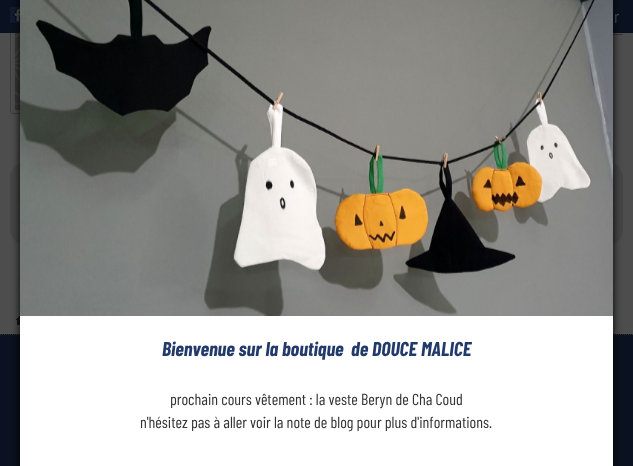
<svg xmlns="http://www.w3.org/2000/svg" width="633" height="466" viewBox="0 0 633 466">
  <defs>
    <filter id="blur1" x="-50%" y="-200%" width="200%" height="500%"><feGaussianBlur stdDeviation="4"/></filter>
  </defs>
  <rect width="100%" height="100%" fill="#4d4d4d"/>
  <rect x="10.5" y="-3.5" width="259" height="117" rx="2.5" fill="none" stroke="#3c3c3c"/>
  <image x="15" y="33" width="5" height="77" href="img1.png"/>
  <rect x="613" y="34" width="10" height="1" fill="#373737"/>
  <rect x="10" y="162" width="613" height="83" rx="16" fill="#454545"/>
  <rect x="0" y="0" width="633" height="33" fill="#0a1120"/>
  <image x="10" y="7" width="10" height="16" href="img2.png"/>
  <text x="614" y="23" font-family="Barlow Condensed" font-size="18" fill="#4d4d4d">r</text>
  <image x="16" y="316" width="4" height="9" href="img3.png"/>
  <rect x="0" y="334" width="633" height="132" fill="#0a1120"/>
  <path d="M0 334.5H633" fill="none" stroke="#323232" stroke-dasharray="1 1"/>
  <rect x="20" y="-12" width="593" height="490" fill="#000000" filter="url(#blur1)"/>
  <rect x="20" y="316" width="593" height="150" fill="#ffffff"/>
  <image x="20" y="0" width="593" height="316" href="img4.png"/>
  <text x="162" y="356" font-family="Barlow Condensed" font-size="20" font-weight="bold" font-style="italic" fill="#223a6a">Bienvenue sur la boutique</text>
  <text x="351" y="356" font-family="Barlow Condensed" font-size="20" font-weight="bold" font-style="italic" fill="#223a6a">de DOUCE MALICE</text>
  <text x="170" y="405" font-family="Barlow Condensed" font-size="16" fill="#333333">prochain cours vêtement : la veste Beryn de Cha Coud</text>
  <text x="140" y="428" font-family="Barlow Condensed" font-size="16" fill="#333333">n'hésitez pas à aller voir la note de blog pour plus d'informations.</text>
</svg>
